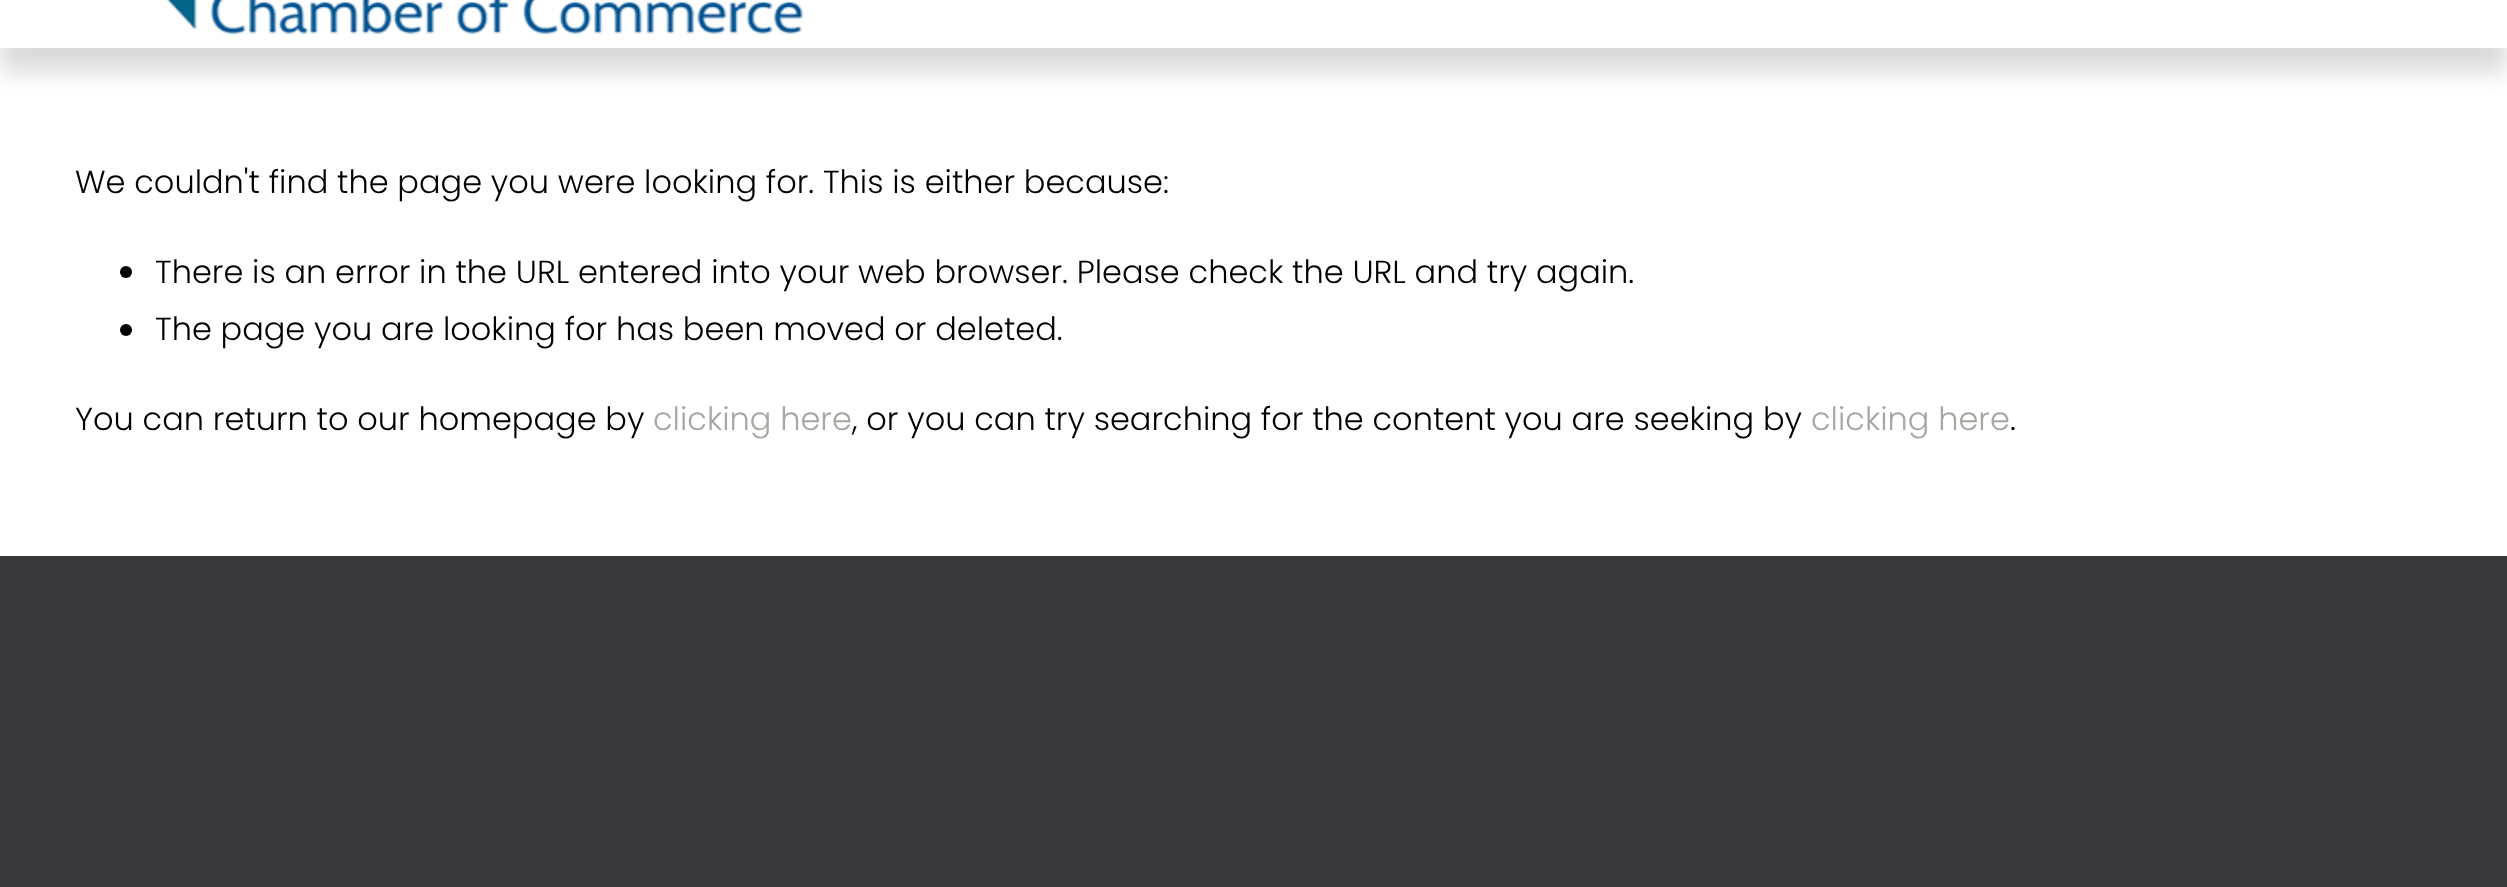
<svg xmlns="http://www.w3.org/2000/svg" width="2507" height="887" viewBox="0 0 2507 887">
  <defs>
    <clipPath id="clip1"><rect x="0" y="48" width="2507" height="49"/></clipPath>
    <filter id="blur1" x="-50%" y="-200%" width="200%" height="500%"><feGaussianBlur stdDeviation="12"/></filter>
  </defs>
  <rect width="100%" height="100%" fill="#ffffff"/>
  <g clip-path="url(#clip1)">
    <rect x="0" y="-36" width="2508" height="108" fill="#d9d9d9" filter="url(#blur1)"/>
  </g>
  <image x="167" y="0" width="637" height="35" href="img1.png"/>
  <text x="75" y="193" font-family="Poppins" font-size="32" font-weight="300" fill="#000000">We couldn't find the page you were looking for. This is either because:</text>
  <circle cx="126" cy="272" r="6" fill="#000000"/>
  <text x="155" y="283" font-family="Poppins" font-size="32" font-weight="300" fill="#000000">There is an error in the URL entered into your web browser. Please check the URL and try again.</text>
  <circle cx="126" cy="330" r="6" fill="#000000"/>
  <text x="155" y="340" font-family="Poppins" font-size="32" font-weight="300" fill="#000000">The page you are looking for has been moved or deleted.</text>
  <text x="75" y="430" font-family="Poppins" font-size="32" font-weight="300" fill="#000000">You can return to our homepage by</text>
  <text x="653" y="430" font-family="Poppins" font-size="32" font-weight="300" fill="#a8a6a1">clicking here</text>
  <text x="852" y="430" font-family="Poppins" font-size="32" font-weight="300" fill="#000000">, or you can try searching for the content you are seeking by</text>
  <text x="1811" y="430" font-family="Poppins" font-size="32" font-weight="300" fill="#a8a6a1">clicking here</text>
  <text x="2010" y="430" font-family="Poppins" font-size="32" font-weight="300" fill="#000000">.</text>
  <rect x="0" y="556" width="2507" height="331" fill="#38383b"/>
</svg>
